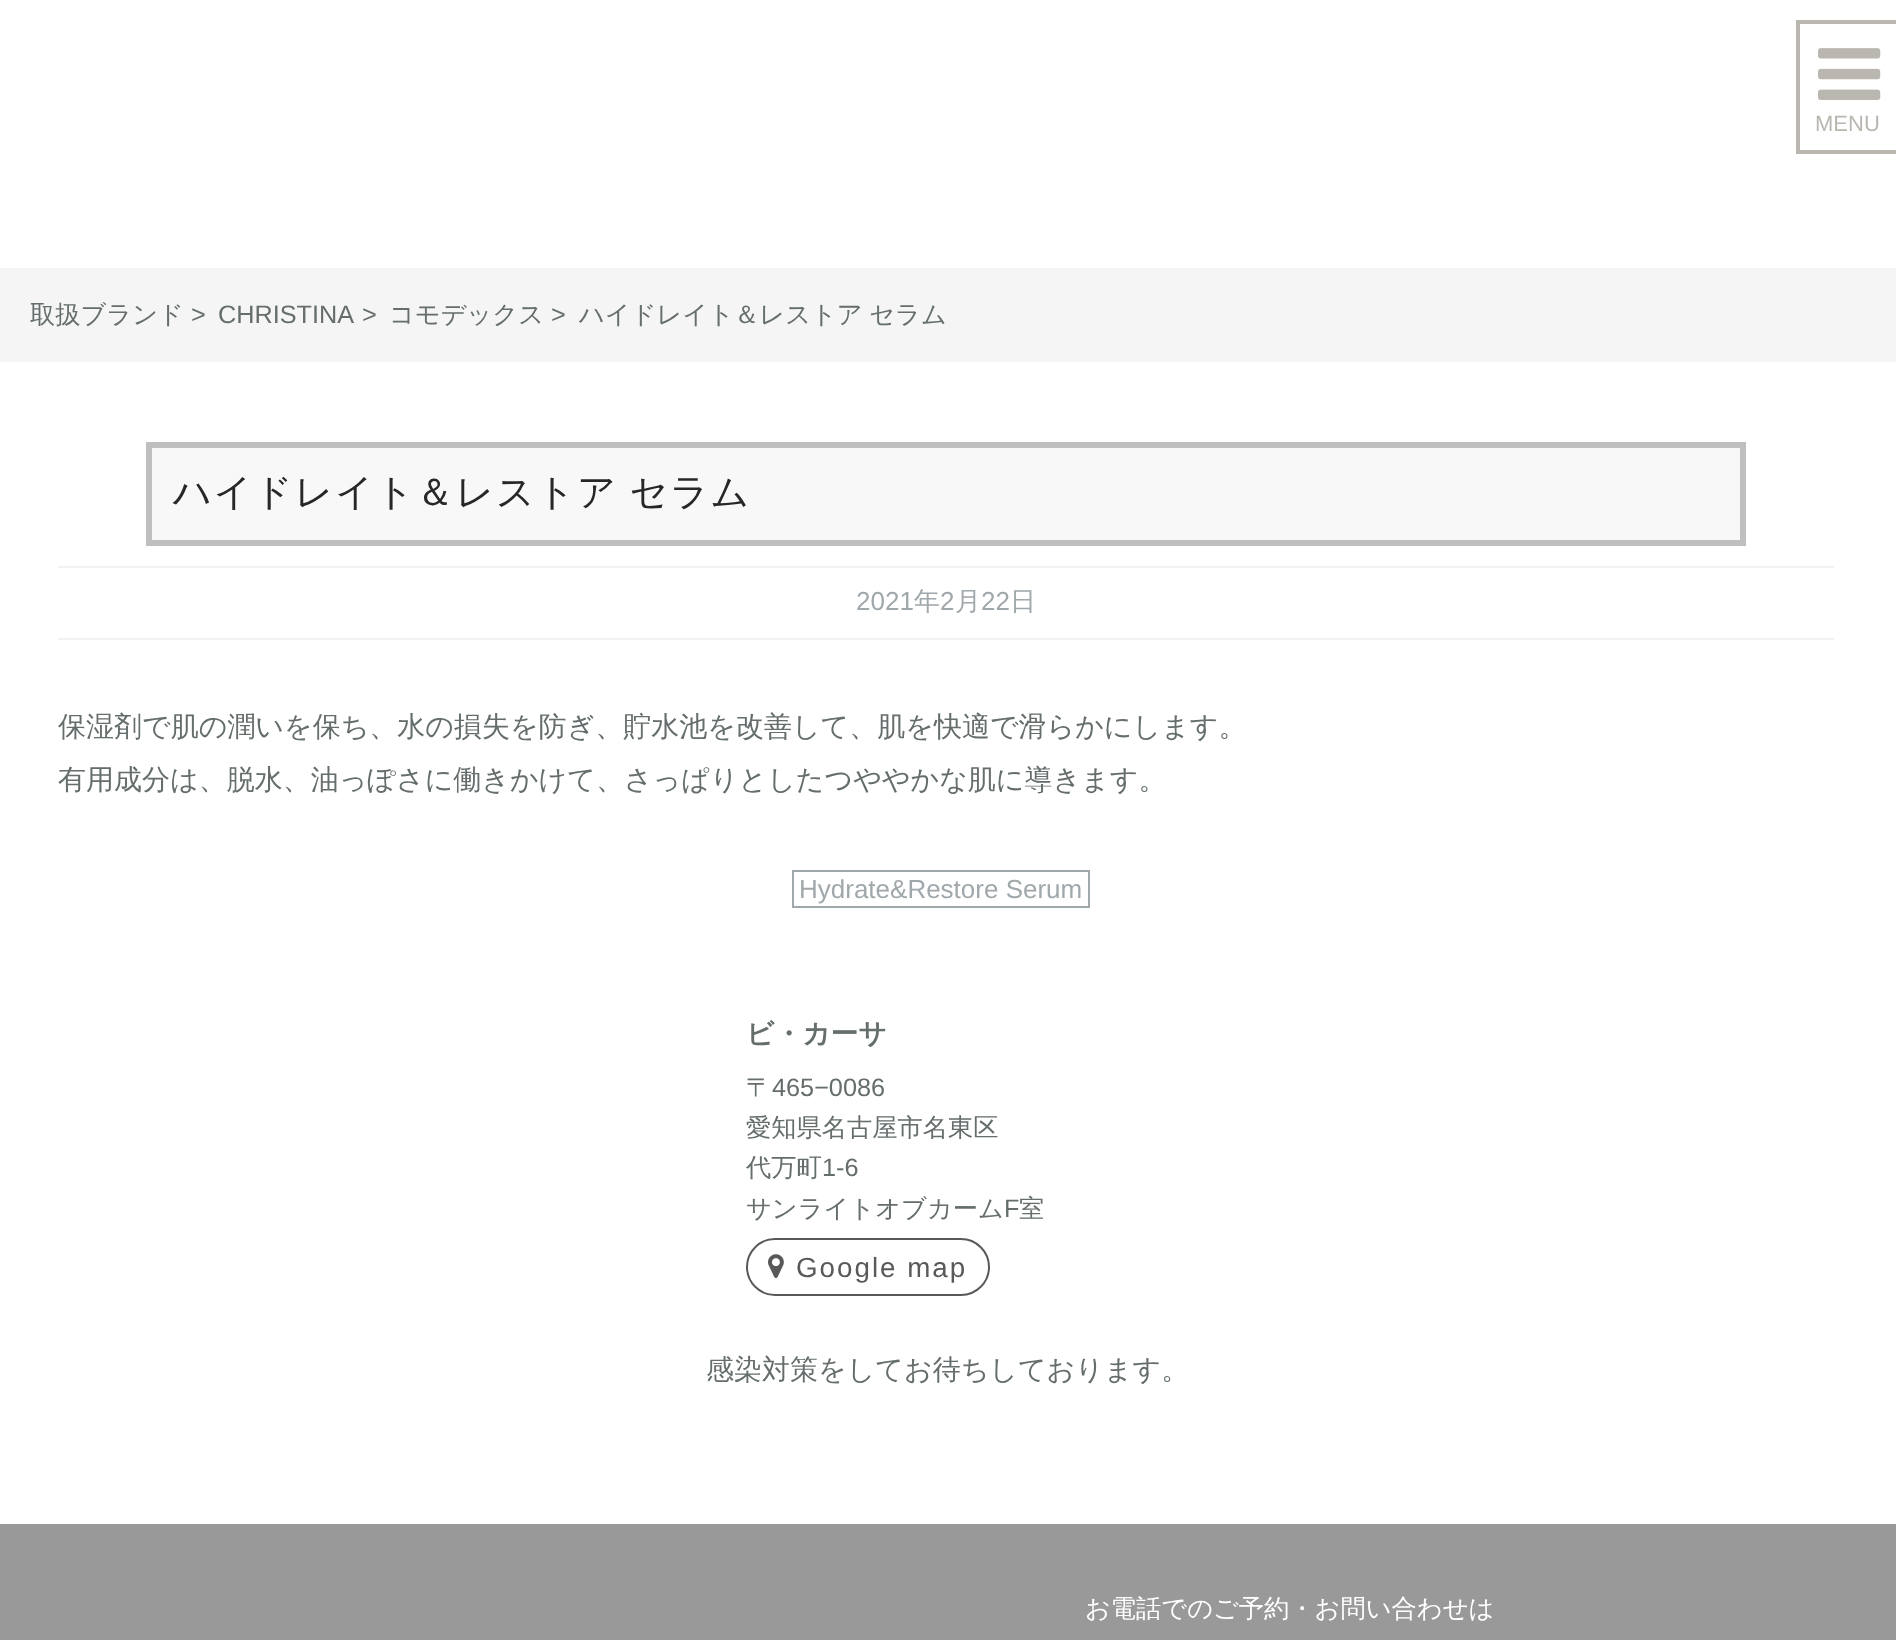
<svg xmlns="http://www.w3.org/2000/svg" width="1896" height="1640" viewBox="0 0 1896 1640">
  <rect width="100%" height="100%" fill="#ffffff"/>
  <rect x="1796" y="20" width="100" height="4" fill="#bab7b1"/>
  <rect x="1796" y="150" width="100" height="4" fill="#bab7b1"/>
  <rect x="1796" y="20" width="4" height="134" fill="#bab7b1"/>
  <image x="1818" y="48" width="63" height="52" href="img1.png"/>
  <text x="1815" y="131" font-family="Liberation Sans" font-size="22" fill="#bab7b1">MENU</text>
  <rect x="0" y="268" width="1896" height="94" fill="#f5f5f5"/>
  <text x="30" y="323" font-family="WenQuanYi Zen Hei" font-size="25.25" font-weight="500" fill="#656d6d">取扱ブランド</text>
  <text x="191" y="323" font-family="Liberation Sans" font-size="25.25" fill="#656d6d">&gt;</text>
  <text x="218" y="323" font-family="Liberation Sans" font-size="25.25" fill="#656d6d">CHRISTINA</text>
  <text x="362" y="323" font-family="Liberation Sans" font-size="25.25" fill="#656d6d">&gt;</text>
  <text x="389" y="323" font-family="WenQuanYi Zen Hei" font-size="25.25" font-weight="500" fill="#656d6d">コモデックス</text>
  <text x="551" y="323" font-family="Liberation Sans" font-size="25.25" fill="#656d6d">&gt;</text>
  <text x="579" y="323" word-spacing="-1" font-family="WenQuanYi Zen Hei" font-size="25.25" font-weight="500" fill="#656d6d">ハイドレイト＆レストア セラム</text>
  <rect x="149" y="445" width="1594" height="98" fill="#f8f8f8" stroke="#bfbfbf" stroke-width="6"/>
  <text x="173" y="505" word-spacing="-1" font-family="WenQuanYi Zen Hei" font-size="38" font-weight="500" letter-spacing="1.6" fill="#272727">ハイドレイト＆レストア セラム</text>
  <rect x="58" y="566" width="1776" height="2" fill="#f2f2f3"/>
  <rect x="58" y="638" width="1776" height="2" fill="#f2f2f3"/>
  <text x="856" y="610" font-family="Liberation Sans" font-size="26" fill="#a0a8ab">2021</text>
  <text x="914" y="610" font-family="WenQuanYi Zen Hei" font-size="26" font-weight="500" fill="#a0a8ab">年</text>
  <text x="940" y="610" font-family="Liberation Sans" font-size="26" fill="#a0a8ab">2</text>
  <text x="955" y="610" font-family="WenQuanYi Zen Hei" font-size="26" font-weight="500" fill="#a0a8ab">月</text>
  <text x="981" y="610" font-family="Liberation Sans" font-size="26" fill="#a0a8ab">22</text>
  <text x="1010" y="610" font-family="WenQuanYi Zen Hei" font-size="26" font-weight="500" fill="#a0a8ab">日</text>
  <text x="58" y="736" font-family="WenQuanYi Zen Hei" font-size="28" font-weight="500" fill="#656d6d">保湿剤で肌の潤いを保ち、水の損失を防ぎ、貯水池を改善して、肌を快適で滑らかにします。</text>
  <text x="58" y="789" font-family="WenQuanYi Zen Hei" font-size="28" font-weight="500" fill="#656d6d">有用成分は、脱水、油っぽさに働きかけて、さっぱりとしたつややかな肌に導きます。</text>
  <rect x="793" y="871" width="296" height="36" fill="none" stroke="#a0a8ab" stroke-width="2"/>
  <text x="799" y="898" font-family="Liberation Sans" font-size="26" fill="#a0a8ab">Hydrate&amp;Restore Serum</text>
  <text x="746" y="1043" font-family="WenQuanYi Zen Hei" font-size="27.75" font-weight="bold" fill="#656d6d">ビ・カーサ</text>
  <text x="746" y="1096" font-family="WenQuanYi Zen Hei" font-size="25.25" font-weight="500" fill="#656d6d">〒</text>
  <text x="772" y="1096" font-family="Liberation Sans" font-size="25.25" fill="#656d6d">465−0086</text>
  <text x="746" y="1136" font-family="WenQuanYi Zen Hei" font-size="25.25" font-weight="500" fill="#656d6d">愛知県名古屋市名東区</text>
  <text x="746" y="1176" font-family="WenQuanYi Zen Hei" font-size="25.25" font-weight="500" fill="#656d6d">代万町</text>
  <text x="822" y="1176" font-family="Liberation Sans" font-size="25.25" fill="#656d6d">1-6</text>
  <text x="746" y="1217" font-family="WenQuanYi Zen Hei" font-size="25.25" font-weight="500" fill="#656d6d">サンライトオブカーム</text>
  <text x="1004" y="1217" font-family="Liberation Sans" font-size="25.25" fill="#656d6d">F</text>
  <text x="1019" y="1217" font-family="WenQuanYi Zen Hei" font-size="25.25" font-weight="500" fill="#656d6d">室</text>
  <rect x="747" y="1239" width="242" height="56" rx="28" fill="none" stroke="#595959" stroke-width="2"/>
  <image x="768" y="1254" width="16" height="24" href="img2.png"/>
  <text x="796" y="1277" font-family="Liberation Sans" font-size="27.75" letter-spacing="2" fill="#595959">Google map</text>
  <text x="706" y="1379" font-family="WenQuanYi Zen Hei" font-size="28" font-weight="500" fill="#656d6d">感染対策をしてお待ちしております。</text>
  <rect x="0" y="1524" width="1896" height="116" fill="#999999"/>
  <text x="1085" y="1617" font-family="WenQuanYi Zen Hei" font-size="25.25" font-weight="500" fill="#ffffff">お電話でのご予約・お問い合わせは</text>
</svg>
